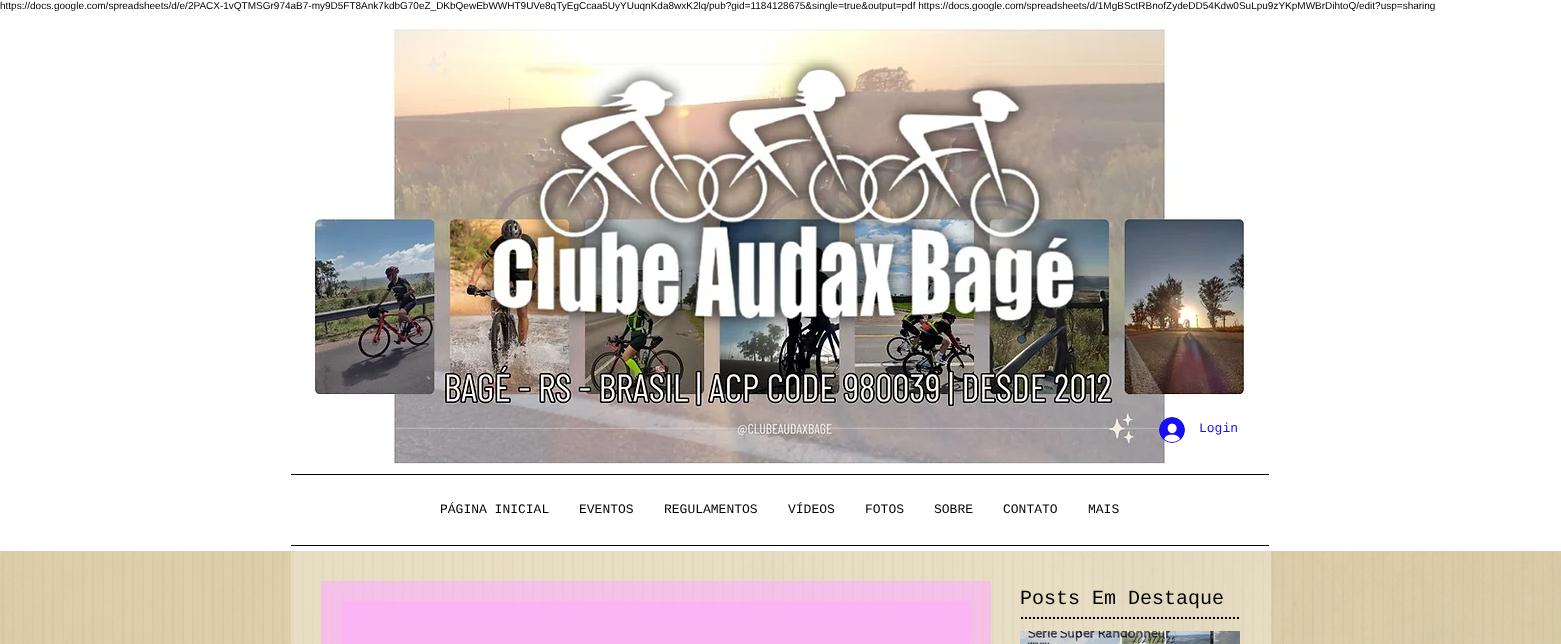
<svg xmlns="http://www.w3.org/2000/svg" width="1561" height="644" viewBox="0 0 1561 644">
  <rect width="100%" height="100%" fill="#ffffff"/>
  <text x="0" y="9" font-family="Liberation Sans" font-size="10" fill="#000000">https://docs.google.com/spreadsheets/d/e/2PACX-1vQTMSGr974aB7-my9D5FT8Ank7kdbG70eZ_DKbQewEbWWHT9UVe8qTyEgCcaa5UyYUuqnKda8wxK2lq/pub?gid=1184128675&amp;single=true&amp;output=pdf https://docs.google.com/spreadsheets/d/1MgBSctRBnofZydeDD54Kdw0SuLpu9zYKpMWBrDihtoQ/edit?usp=sharing</text>
  <rect x="11" y="11" width="1422" height="1" fill="#ffffff"/>
  <image x="311" y="27" width="936" height="440" href="img1.png"/>
  <image x="1159" y="417" width="26" height="26" href="img2.png"/>
  <text x="1199" y="432" font-family="Liberation Mono" font-size="13" fill="#170df2">Login</text>
  <rect x="291" y="474" width="978" height="1" fill="#000000"/>
  <rect x="291" y="545" width="978" height="1" fill="#000000"/>
  <text x="440" y="513" font-family="Liberation Mono" font-size="13" fill="#000000">PÁGINA INICIAL</text>
  <text x="579" y="513" font-family="Liberation Mono" font-size="13" fill="#000000">EVENTOS</text>
  <text x="664" y="513" font-family="Liberation Mono" font-size="13" fill="#000000">REGULAMENTOS</text>
  <text x="788" y="513" font-family="Liberation Mono" font-size="13" fill="#000000">VÍDEOS</text>
  <text x="865" y="513" font-family="Liberation Mono" font-size="13" fill="#000000">FOTOS</text>
  <text x="934" y="513" font-family="Liberation Mono" font-size="13" fill="#000000">SOBRE</text>
  <text x="1003" y="513" font-family="Liberation Mono" font-size="13" fill="#000000">CONTATO</text>
  <text x="1088" y="513" font-family="Liberation Mono" font-size="13" fill="#000000">MAIS</text>
  <image x="0" y="551" width="1561" height="93" href="img4.png"/>
  <rect x="291" y="551" width="980" height="93" fill="#ffffff" fill-opacity="0.3"/>
  <rect x="321" y="581" width="670" height="63" fill="#ffadff" fill-opacity="0.6"/>
  <rect x="341" y="601" width="630" height="43" fill="#ffadff" fill-opacity="0.6"/>
  <text x="1020" y="604" font-family="Liberation Mono" font-size="20" fill="#000000">Posts Em Destaque</text>
  <path d="M1021 618H1241" fill="none" stroke="#000000" stroke-width="2" stroke-dasharray="2 2"/>
  <image x="1020" y="631" width="220" height="13" href="img3.png"/>
</svg>
